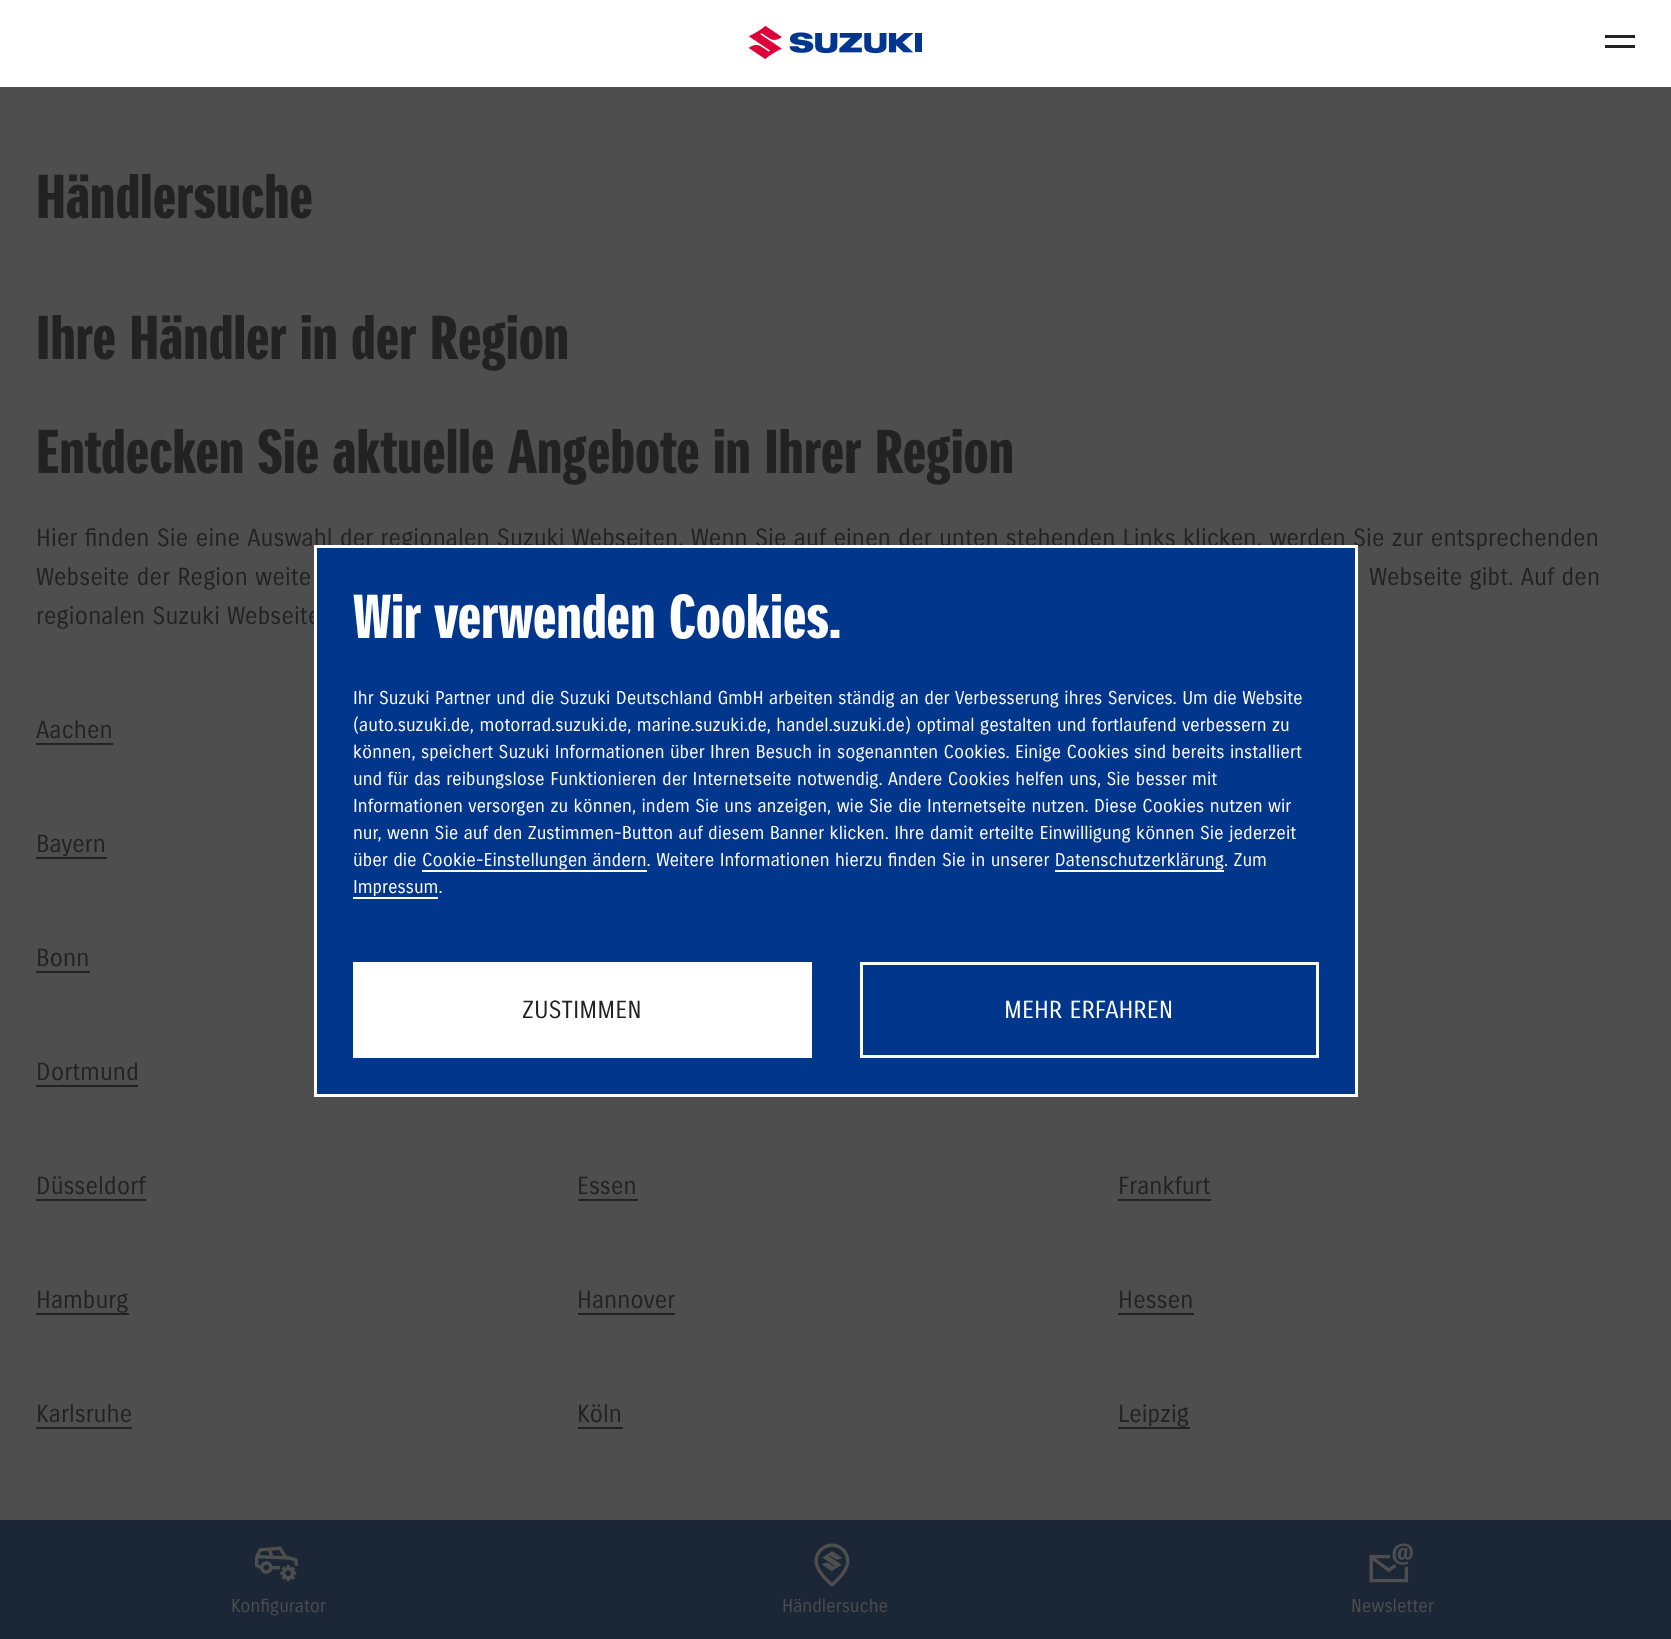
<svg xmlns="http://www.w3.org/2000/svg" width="1671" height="1639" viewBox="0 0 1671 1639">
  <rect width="100%" height="100%" fill="#4e4e4e"/>
  <rect x="0" y="0" width="1671" height="87" fill="#ffffff"/>
  <image x="749" y="25" width="173" height="34" href="img1.png"/>
  <rect x="1605" y="35" width="30" height="3" fill="#222222"/>
  <rect x="1605" y="45" width="30" height="3" fill="#222222"/>
  <text x="36" y="218" font-family="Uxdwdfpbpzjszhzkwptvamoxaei" font-size="60" font-weight="bold" fill="#222222">Händlersuche</text>
  <text x="36" y="359" font-family="Uxdwdfpbpzjszhzkwptvamoxaei" font-size="60" font-weight="bold" fill="#222222">Ihre Händler in der Region</text>
  <text x="36" y="473" font-family="Uxdwdfpbpzjszhzkwptvamoxaei" font-size="60" font-weight="bold" fill="#222222">Entdecken Sie aktuelle Angebote in Ihrer Region</text>
  <text x="36" y="546" font-family="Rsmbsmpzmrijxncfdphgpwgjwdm" font-size="24" fill="#222222">Hier finden Sie eine Auswahl der regionalen Suzuki Webseiten. Wenn Sie auf einen der unten stehenden Links klicken, werden Sie zur entsprechenden</text>
  <text x="36" y="585" font-family="Rsmbsmpzmrijxncfdphgpwgjwdm" font-size="24" fill="#222222">Webseite der Region weite</text>
  <text x="1369" y="585" font-family="Rsmbsmpzmrijxncfdphgpwgjwdm" font-size="24" fill="#222222">Webseite gibt. Auf den</text>
  <text x="36" y="624" font-family="Rsmbsmpzmrijxncfdphgpwgjwdm" font-size="24" fill="#222222">regionalen Suzuki Webseite</text>
  <text x="36" y="738" font-family="Rsmbsmpzmrijxncfdphgpwgjwdm" font-size="24" fill="#222222">Aachen</text>
  <rect x="36" y="743" width="77" height="2" fill="#222222"/>
  <text x="36" y="852" font-family="Rsmbsmpzmrijxncfdphgpwgjwdm" font-size="24" fill="#222222">Bayern</text>
  <rect x="36" y="857" width="71" height="2" fill="#222222"/>
  <text x="36" y="966" font-family="Rsmbsmpzmrijxncfdphgpwgjwdm" font-size="24" fill="#222222">Bonn</text>
  <rect x="36" y="971" width="54" height="2" fill="#222222"/>
  <text x="36" y="1080" font-family="Rsmbsmpzmrijxncfdphgpwgjwdm" font-size="24" fill="#222222">Dortmund</text>
  <rect x="36" y="1085" width="102" height="2" fill="#222222"/>
  <text x="36" y="1194" font-family="Rsmbsmpzmrijxncfdphgpwgjwdm" font-size="24" fill="#222222">Düsseldorf</text>
  <rect x="36" y="1199" width="110" height="2" fill="#222222"/>
  <text x="577" y="1194" font-family="Rsmbsmpzmrijxncfdphgpwgjwdm" font-size="24" fill="#222222">Essen</text>
  <rect x="578" y="1199" width="60" height="2" fill="#222222"/>
  <text x="1118" y="1194" font-family="Rsmbsmpzmrijxncfdphgpwgjwdm" font-size="24" fill="#222222">Frankfurt</text>
  <rect x="1118" y="1199" width="93" height="2" fill="#222222"/>
  <text x="36" y="1308" font-family="Rsmbsmpzmrijxncfdphgpwgjwdm" font-size="24" fill="#222222">Hamburg</text>
  <rect x="36" y="1313" width="93" height="2" fill="#222222"/>
  <text x="577" y="1308" font-family="Rsmbsmpzmrijxncfdphgpwgjwdm" font-size="24" fill="#222222">Hannover</text>
  <rect x="578" y="1313" width="97" height="2" fill="#222222"/>
  <text x="1118" y="1308" font-family="Rsmbsmpzmrijxncfdphgpwgjwdm" font-size="24" fill="#222222">Hessen</text>
  <rect x="1118" y="1313" width="76" height="2" fill="#222222"/>
  <text x="36" y="1422" font-family="Rsmbsmpzmrijxncfdphgpwgjwdm" font-size="24" fill="#222222">Karlsruhe</text>
  <rect x="36" y="1427" width="96" height="2" fill="#222222"/>
  <text x="577" y="1422" font-family="Rsmbsmpzmrijxncfdphgpwgjwdm" font-size="24" fill="#222222">Köln</text>
  <rect x="578" y="1427" width="45" height="2" fill="#222222"/>
  <text x="1118" y="1422" font-family="Rsmbsmpzmrijxncfdphgpwgjwdm" font-size="24" fill="#222222">Leipzig</text>
  <rect x="1118" y="1427" width="72" height="2" fill="#222222"/>
  <rect x="315.5" y="546.5" width="1041" height="549" fill="#00368c" stroke="#ffffff" stroke-width="3"/>
  <text x="353" y="638" font-family="Uxdwdfpbpzjszhzkwptvamoxaei" font-size="60" font-weight="bold" fill="#ffffff">Wir verwenden Cookies.</text>
  <text x="353" y="704" font-family="Rsmbsmpzmrijxncfdphgpwgjwdm" font-size="18" fill="#ffffff">Ihr Suzuki Partner und die Suzuki Deutschland GmbH arbeiten ständig an der Verbesserung ihres Services. Um die Website</text>
  <text x="353" y="731" font-family="Rsmbsmpzmrijxncfdphgpwgjwdm" font-size="18" fill="#ffffff">(auto.suzuki.de, motorrad.suzuki.de, marine.suzuki.de, handel.suzuki.de) optimal gestalten und fortlaufend verbessern zu</text>
  <text x="353" y="758" font-family="Rsmbsmpzmrijxncfdphgpwgjwdm" font-size="18" fill="#ffffff">können, speichert Suzuki Informationen über Ihren Besuch in sogenannten Cookies. Einige Cookies sind bereits installiert</text>
  <text x="353" y="785" font-family="Rsmbsmpzmrijxncfdphgpwgjwdm" font-size="18" fill="#ffffff">und für das reibungslose Funktionieren der Internetseite notwendig. Andere Cookies helfen uns, Sie besser mit</text>
  <text x="353" y="812" font-family="Rsmbsmpzmrijxncfdphgpwgjwdm" font-size="18" fill="#ffffff">Informationen versorgen zu können, indem Sie uns anzeigen, wie Sie die Internetseite nutzen. Diese Cookies nutzen wir</text>
  <text x="353" y="839" font-family="Rsmbsmpzmrijxncfdphgpwgjwdm" font-size="18" fill="#ffffff">nur, wenn Sie auf den Zustimmen-Button auf diesem Banner klicken. Ihre damit erteilte Einwilligung können Sie jederzeit</text>
  <text x="353" y="866" font-family="Rsmbsmpzmrijxncfdphgpwgjwdm" font-size="18" fill="#ffffff">über die Cookie-Einstellungen ändern. Weitere Informationen hierzu finden Sie in unserer Datenschutzerklärung. Zum</text>
  <rect x="422" y="870" width="225" height="2" fill="#ffffff"/>
  <rect x="1055" y="870" width="169" height="2" fill="#ffffff"/>
  <text x="353" y="893" font-family="Rsmbsmpzmrijxncfdphgpwgjwdm" font-size="18" fill="#ffffff">Impressum.</text>
  <rect x="353" y="897" width="85" height="2" fill="#ffffff"/>
  <rect x="353" y="962" width="459" height="96" fill="#ffffff"/>
  <text x="522" y="1018" font-family="Rsmbsmpzmrijxncfdphgpwgjwdm" font-size="24" fill="#222222">ZUSTIMMEN</text>
  <rect x="861.5" y="963.5" width="456" height="93" fill="none" stroke="#ffffff" stroke-width="3"/>
  <text x="1004" y="1018" font-family="Rsmbsmpzmrijxncfdphgpwgjwdm" font-size="24" fill="#ffffff">MEHR ERFAHREN</text>
  <rect x="0" y="1520" width="1671" height="119" fill="#1b2637"/>
  <image x="255" y="1546" width="44" height="36" href="img2.png"/>
  <text x="231" y="1612" font-family="Rsmbsmpzmrijxncfdphgpwgjwdm" font-size="18" fill="#4e4e4e">Konfigurator</text>
  <image x="814" y="1543" width="36" height="44" href="img3.png"/>
  <text x="782" y="1612" font-family="Rsmbsmpzmrijxncfdphgpwgjwdm" font-size="18" fill="#4e4e4e">Händlersuche</text>
  <image x="1369" y="1543" width="44" height="40" href="img4.png"/>
  <text x="1351" y="1612" font-family="Rsmbsmpzmrijxncfdphgpwgjwdm" font-size="18" fill="#4e4e4e">Newsletter</text>
</svg>
